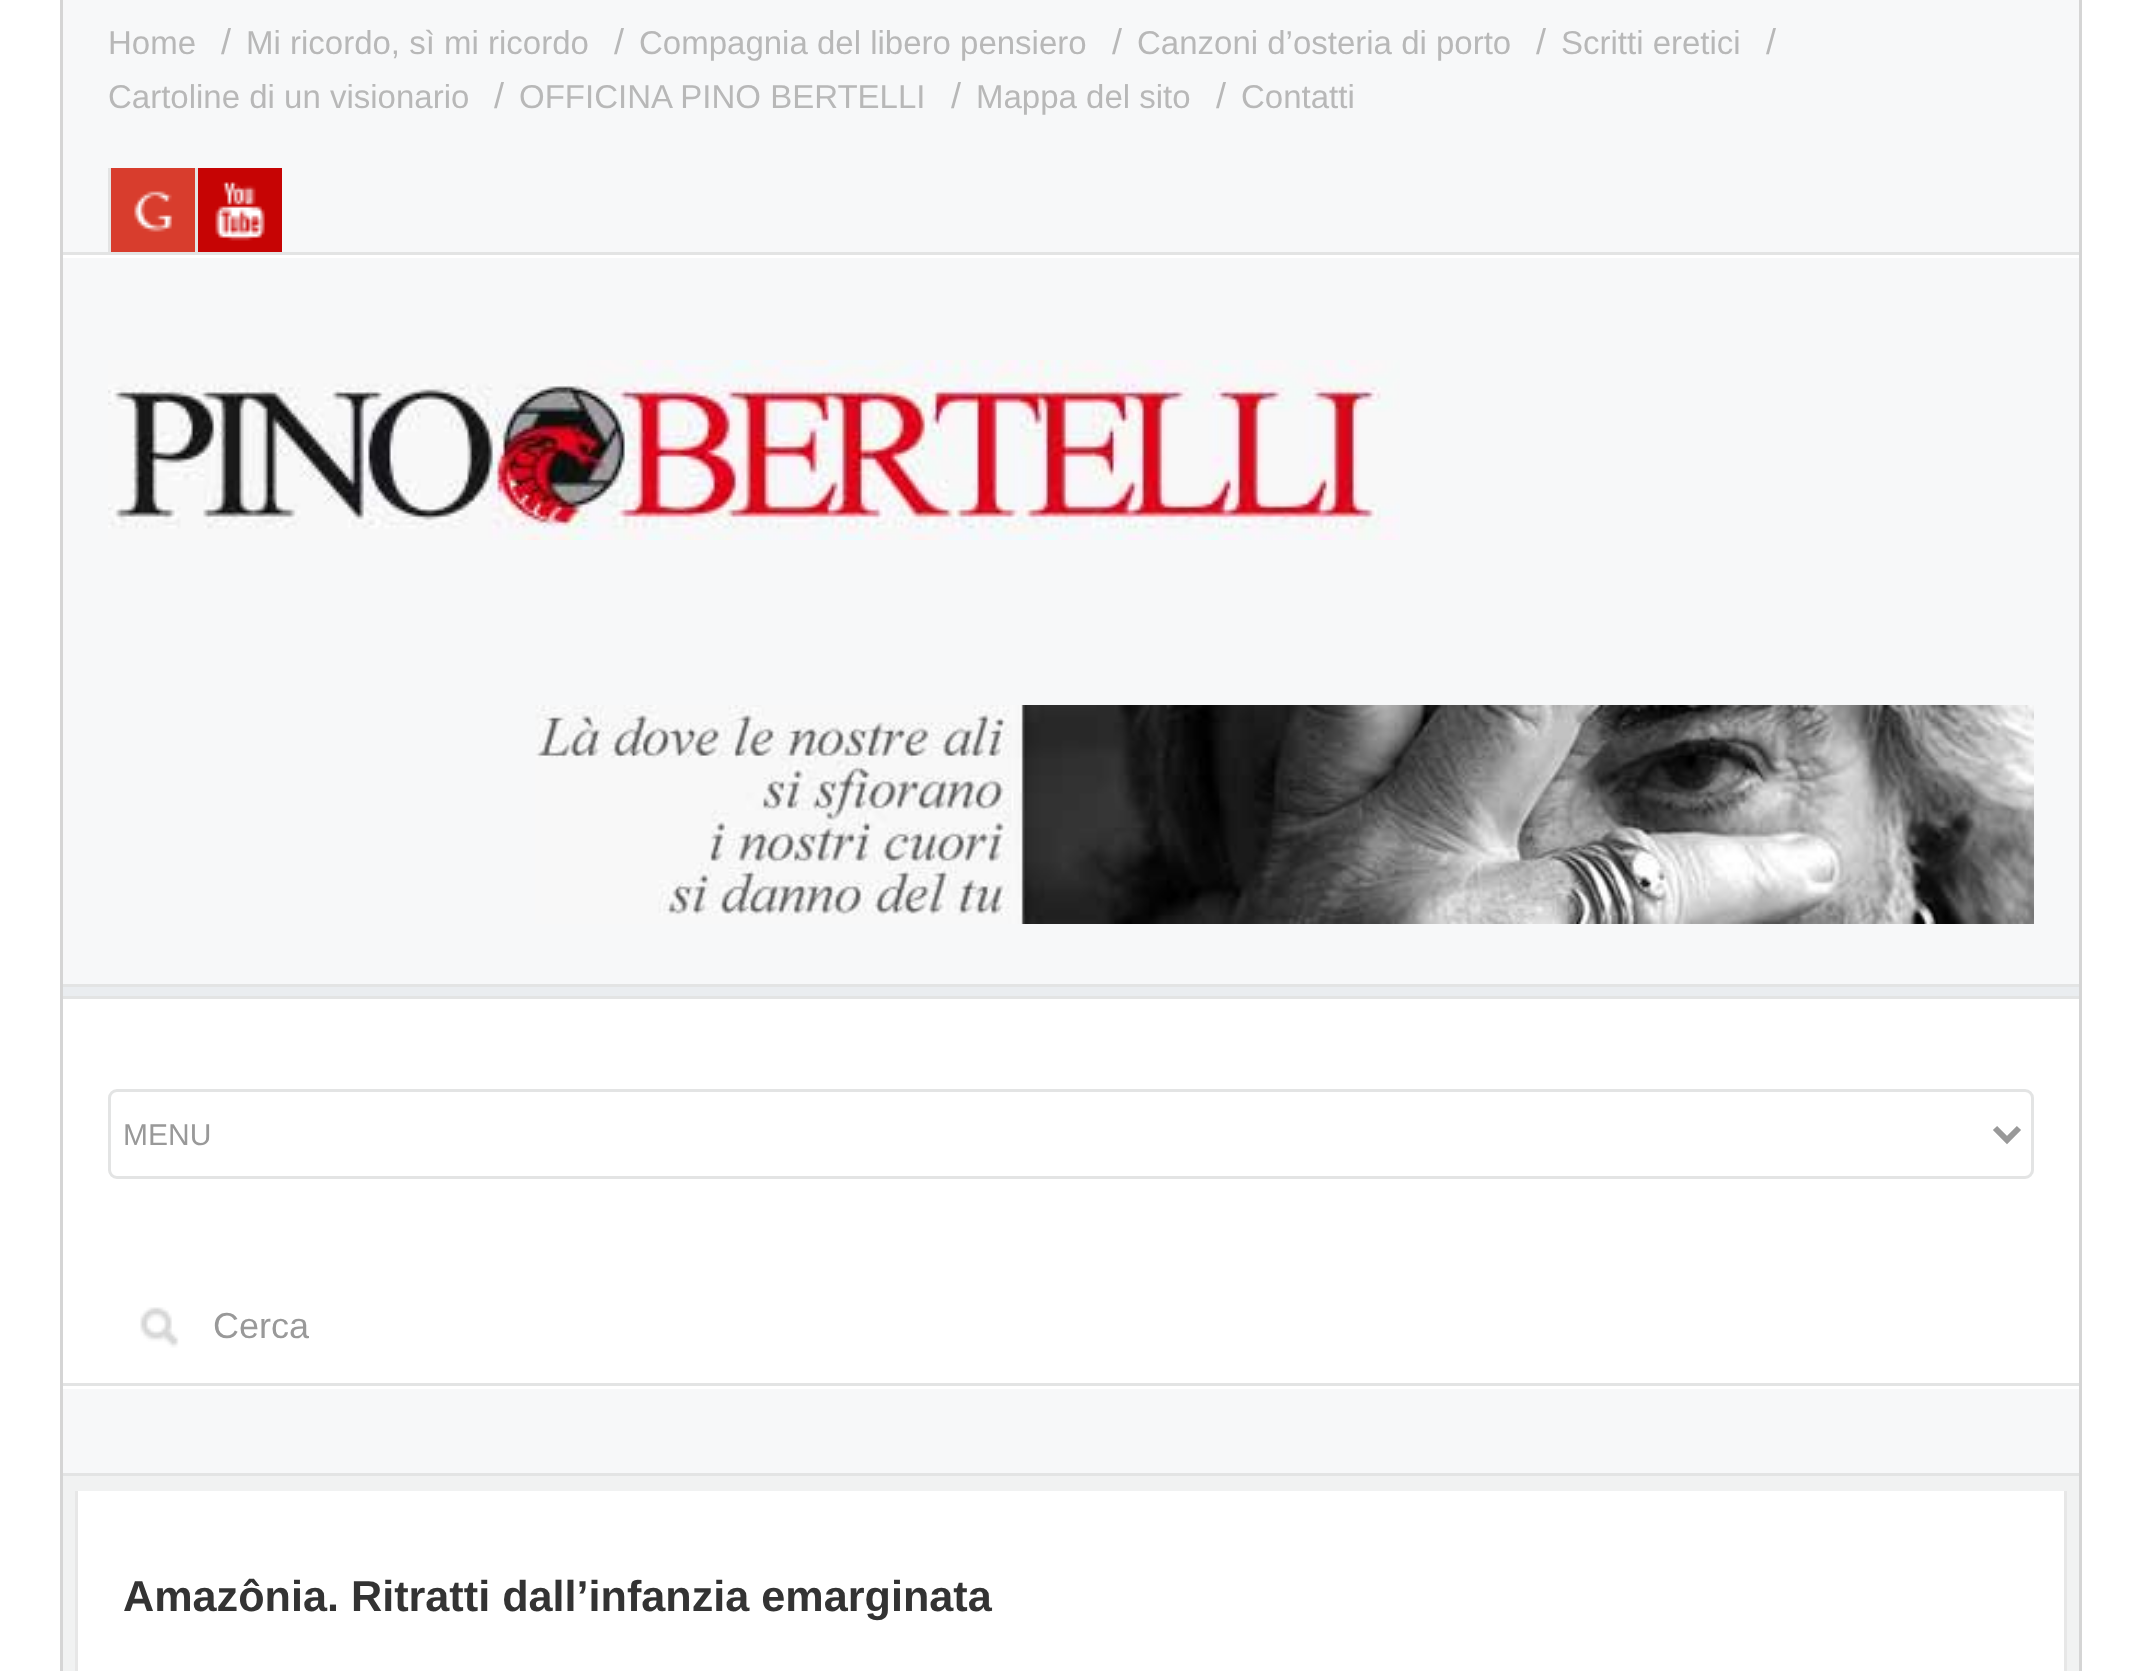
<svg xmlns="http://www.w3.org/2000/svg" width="2140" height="1671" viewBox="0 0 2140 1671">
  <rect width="100%" height="100%" fill="#ffffff"/>
  <rect x="63" y="0" width="2016" height="1473" fill="#f7f8f9"/>
  <rect x="2079" y="0" width="3" height="1671" fill="#d5d5d5"/>
  <rect x="60" y="0" width="3" height="1671" fill="#d5d5d5"/>
  <rect x="63" y="255" width="2016" height="3" fill="#ffffff"/>
  <rect x="63" y="252" width="2016" height="3" fill="#e3e4e4"/>
  <text x="108" y="54" font-family="Liberation Sans" font-size="33" fill="#b8b8b8">Home</text>
  <text x="221" y="54" font-family="Liberation Sans" font-size="36" fill="#b8b8b8">/</text>
  <text x="246" y="54" font-family="Liberation Sans" font-size="33" fill="#b8b8b8">Mi ricordo, sì mi ricordo</text>
  <text x="614" y="54" font-family="Liberation Sans" font-size="36" fill="#b8b8b8">/</text>
  <text x="639" y="54" font-family="Liberation Sans" font-size="33" fill="#b8b8b8">Compagnia del libero pensiero</text>
  <text x="1112" y="54" font-family="Liberation Sans" font-size="36" fill="#b8b8b8">/</text>
  <text x="1137" y="54" font-family="Liberation Sans" font-size="33" fill="#b8b8b8">Canzoni d’osteria di porto</text>
  <text x="1536" y="54" font-family="Liberation Sans" font-size="36" fill="#b8b8b8">/</text>
  <text x="1561" y="54" font-family="Liberation Sans" font-size="33" fill="#b8b8b8">Scritti eretici</text>
  <text x="1766" y="54" font-family="Liberation Sans" font-size="36" fill="#b8b8b8">/</text>
  <text x="108" y="108" font-family="Liberation Sans" font-size="33" fill="#b8b8b8">Cartoline di un visionario</text>
  <text x="494" y="108" font-family="Liberation Sans" font-size="36" fill="#b8b8b8">/</text>
  <text x="519" y="108" font-family="Liberation Sans" font-size="33" fill="#b8b8b8">OFFICINA PINO BERTELLI</text>
  <text x="951" y="108" font-family="Liberation Sans" font-size="36" fill="#b8b8b8">/</text>
  <text x="976" y="108" font-family="Liberation Sans" font-size="33" fill="#b8b8b8">Mappa del sito</text>
  <text x="1216" y="108" font-family="Liberation Sans" font-size="36" fill="#b8b8b8">/</text>
  <text x="1241" y="108" font-family="Liberation Sans" font-size="33" fill="#b8b8b8">Contatti</text>
  <rect x="108" y="168" width="3" height="84" fill="#e3e4e4"/>
  <image x="111" y="168" width="84" height="84" href="img1.png"/>
  <rect x="195" y="168" width="3" height="84" fill="#e3e4e4"/>
  <image x="198" y="168" width="84" height="84" href="img2.png"/>
  <image x="108" y="360" width="1292" height="180" href="img3.png"/>
  <image x="535" y="705" width="1499" height="219" href="img4.png"/>
  <rect x="63" y="987" width="2016" height="9" fill="#eaedf0"/>
  <rect x="63" y="984" width="2016" height="3" fill="#e3e4e4"/>
  <rect x="63" y="1491" width="2016" height="180" fill="#f1f2f2"/>
  <rect x="76.5" y="1489.5" width="1989" height="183" fill="#ffffff" stroke="#e7e7e7" stroke-width="3"/>
  <rect x="63" y="1476" width="2016" height="15" fill="#f1f2f2"/>
  <rect x="63" y="1473" width="2016" height="3" fill="#e3e4e4"/>
  <rect x="63" y="1386" width="2016" height="3" fill="#ffffff"/>
  <rect x="63" y="999" width="2016" height="384" fill="#ffffff"/>
  <rect x="63" y="996" width="2016" height="3" fill="#e3e4e4"/>
  <rect x="63" y="1383" width="2016" height="3" fill="#e3e4e4"/>
  <rect x="109.5" y="1090.5" width="1923" height="87" rx="7.5" fill="none" stroke="#e3e4e4" stroke-width="3"/>
  <path d="M1995 1128L2007 1140L2019 1128" fill="none" stroke="#999999" stroke-width="6"/>
  <text x="123" y="1145" font-family="Liberation Sans" font-size="30" fill="#999999">MENU</text>
  <image x="140" y="1307" width="39" height="41" href="img5.png"/>
  <text x="213" y="1338" font-family="Liberation Sans" font-size="36" fill="#999999">Cerca</text>
  <text x="123" y="1611" font-family="Liberation Sans" font-size="43.2" font-weight="bold" fill="#333333">Amazônia. Ritratti dall’infanzia emarginata</text>
</svg>
